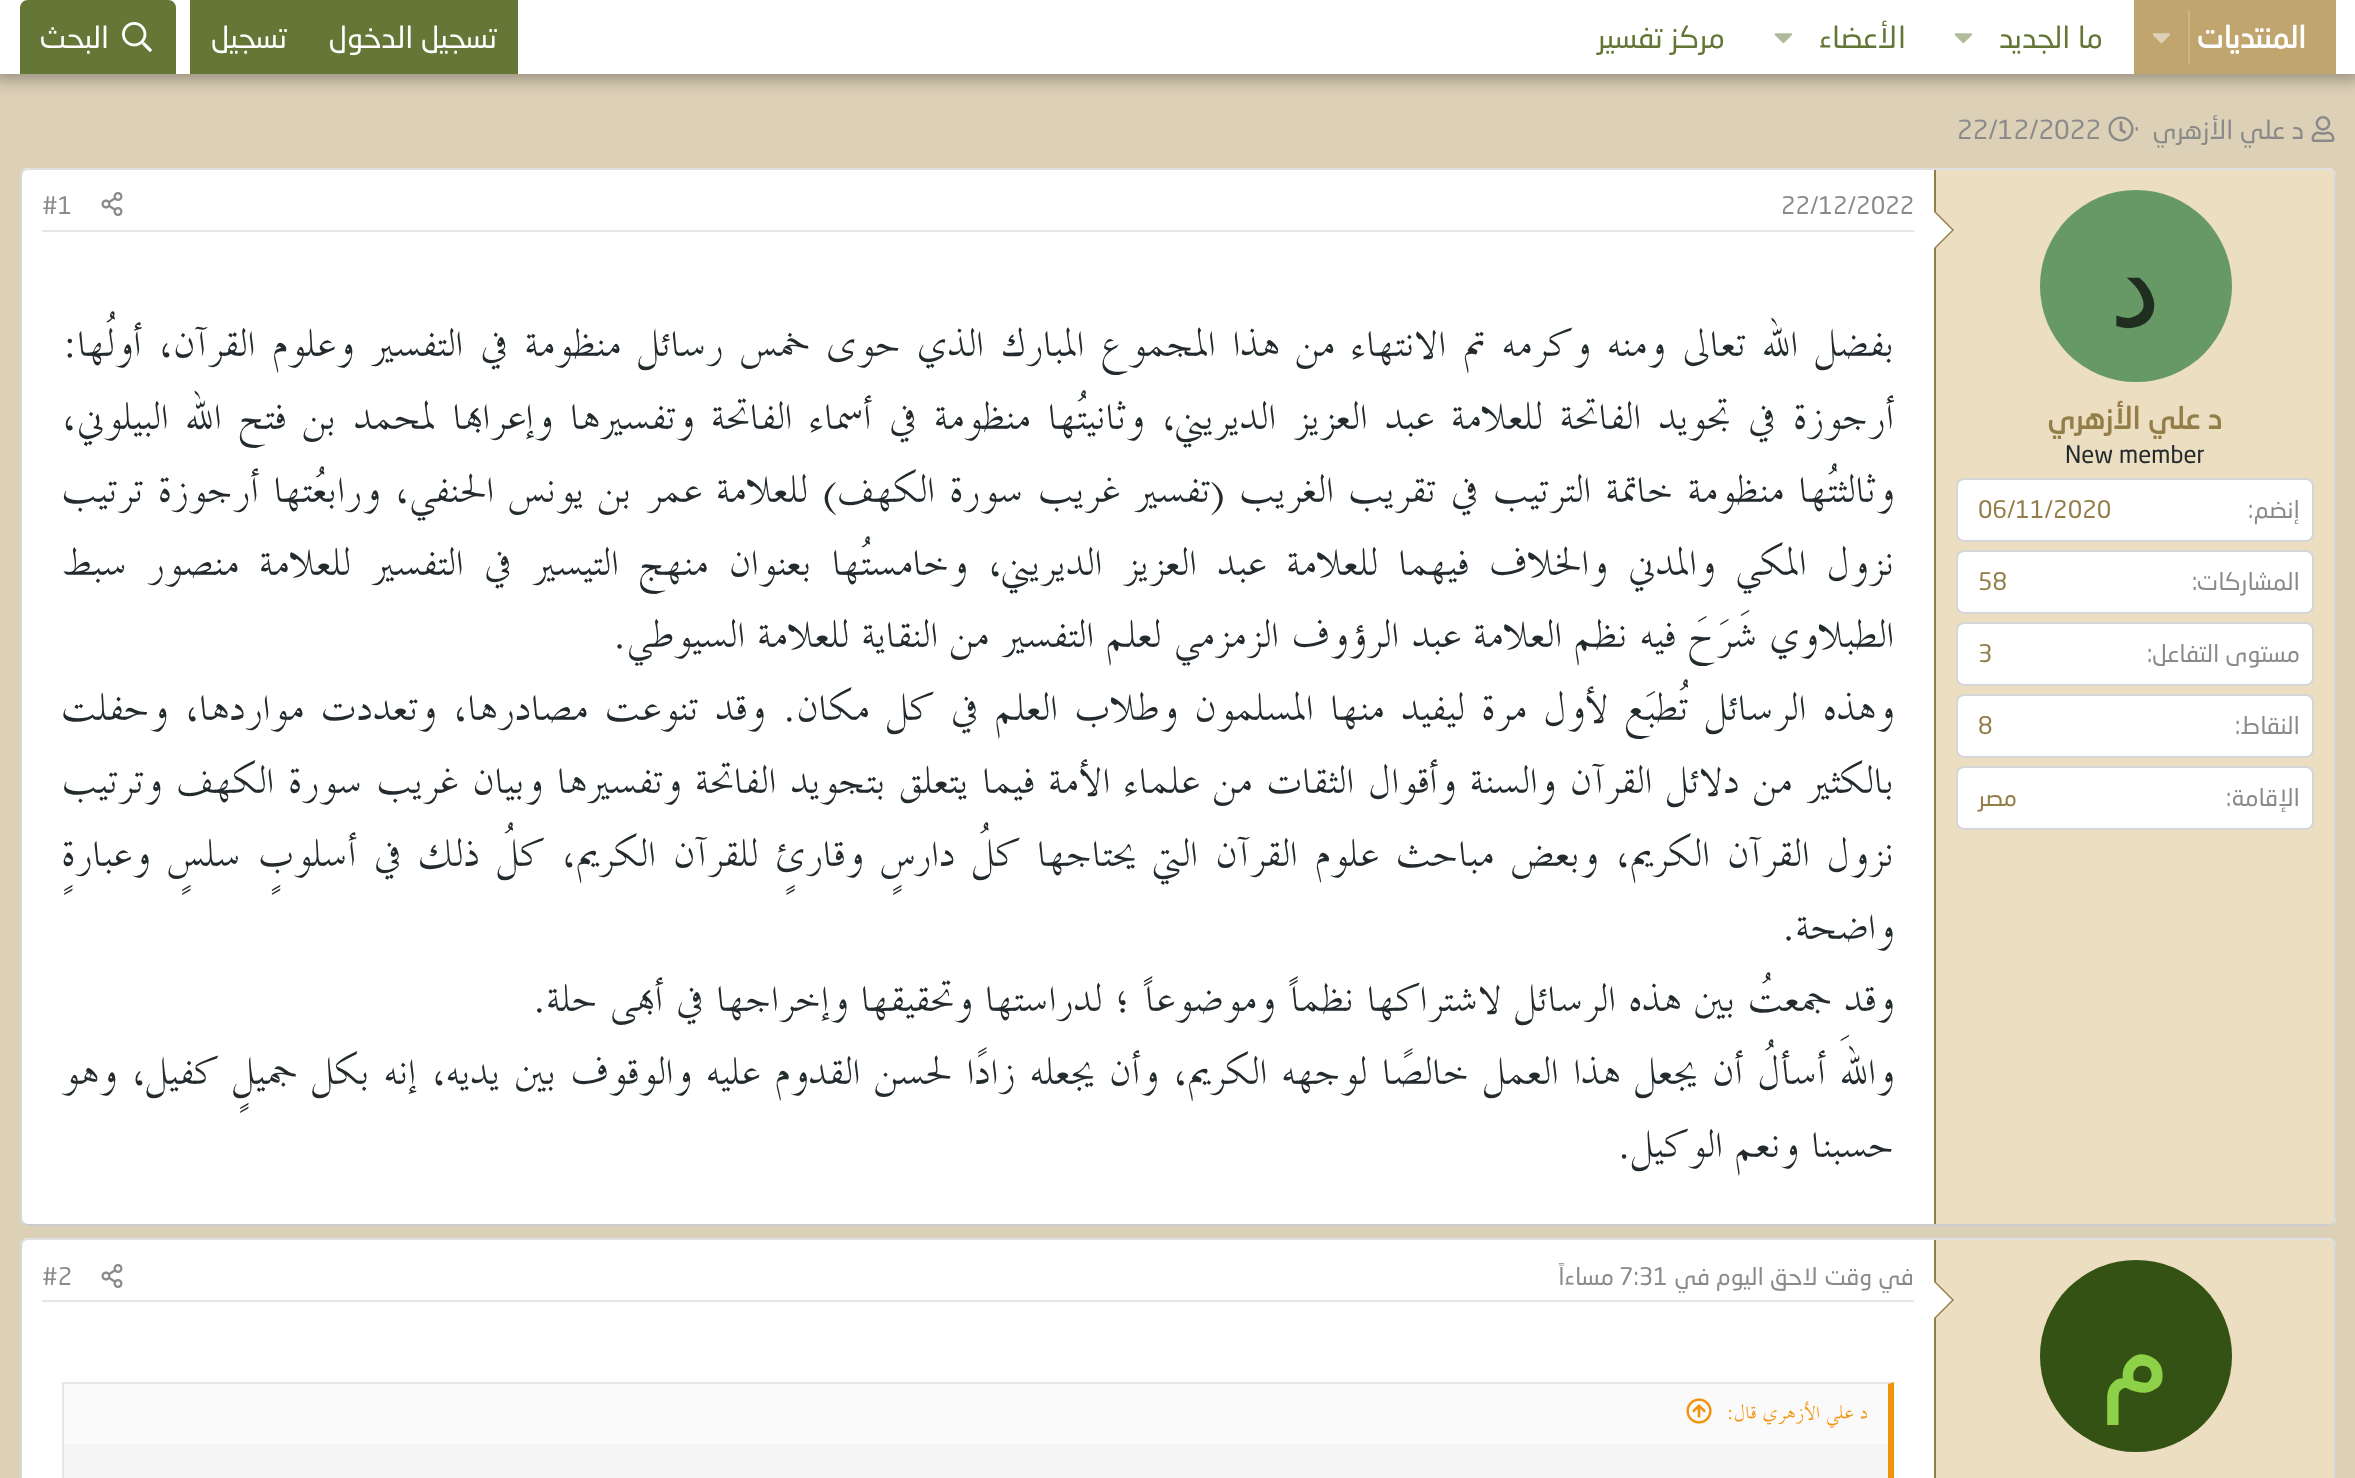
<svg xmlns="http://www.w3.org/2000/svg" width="2355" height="1478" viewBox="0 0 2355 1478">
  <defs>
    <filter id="blur1" x="-50%" y="-200%" width="200%" height="500%"><feGaussianBlur stdDeviation="8"/></filter>
  </defs>
  <rect width="100%" height="100%" fill="#dcd0b7"/>
  <rect x="-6" y="-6" width="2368" height="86" fill="#000000" fill-opacity="0.3" filter="url(#blur1)"/>
  <rect x="0" y="0" width="2355" height="74" fill="#ffffff"/>
  <rect x="2134" y="0" width="202" height="74" fill="#c0a56f"/>
  <text x="2306" y="48" font-family="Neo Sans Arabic" font-size="30" font-weight="bold" direction="rtl" fill="#ffffff">المنتديات</text>
  <rect x="2188" y="10" width="2" height="54" fill="#cbb588"/>
  <image x="2152" y="33" width="18" height="11" href="img1.png"/>
  <text x="2103" y="48" font-family="Neo Sans Arabic" font-size="30" direction="rtl" fill="#647636">ما الجديد</text>
  <image x="1954" y="33" width="18" height="11" href="img2.png"/>
  <text x="1906" y="48" font-family="Neo Sans Arabic" font-size="30" direction="rtl" fill="#647636">الأعضاء</text>
  <image x="1774" y="33" width="18" height="11" href="img2.png"/>
  <text x="1725" y="48" font-family="Neo Sans Arabic" font-size="30" direction="rtl" fill="#647636">مركز تفسير</text>
  <rect x="190" y="0" width="328" height="74" fill="#657737"/>
  <text x="497" y="48" font-family="Neo Sans Arabic" font-size="30" direction="rtl" fill="#ffffff">تسجيل الدخول</text>
  <text x="287" y="48" font-family="Neo Sans Arabic" font-size="30" direction="rtl" fill="#ffffff">تسجيل</text>
  <path d="M28 0H168C172.5 0 176 3.5 176 8V74H20V8C20 3.5 23.5 0 28 0Z" fill="#657737"/>
  <image x="122" y="22" width="30" height="30" href="img3.png"/>
  <text x="109" y="48" font-family="Neo Sans Arabic" font-size="30" direction="rtl" fill="#ffffff">البحث</text>
  <image x="2311" y="116" width="24" height="26" href="img4.png"/>
  <text x="2304" y="139" font-family="Neo Sans Arabic" font-size="26" direction="rtl" fill="#8a8a8a">د علي الأزهري</text>
  <text x="2134" y="139" font-family="Neo Sans Arabic" font-size="26" fill="#8a8a8a">·</text>
  <image x="2108" y="116" width="26" height="26" href="img5.png"/>
  <text x="1957" y="139" font-family="Neo Sans Arabic" font-size="26" fill="#8a8a8a">22/12/2022</text>
  <rect x="20" y="168" width="2316" height="1058" rx="8" fill="#ffffff"/>
  <path d="M23 171C24.5 169.5 26 169 28 169H2328C2330 169 2331.5 169.5 2333 171" fill="none" stroke="#e0e0e0" stroke-width="2"/>
  <path d="M2333 171C2334.5 172.5 2335 174 2335 176V1218C2335 1220 2334.5 1221.5 2333 1223" fill="none" stroke="#d6d6d6" stroke-width="2"/>
  <path d="M2333 1223C2331.5 1224.5 2330 1225 2328 1225H28C26 1225 24.5 1224.5 23 1223" fill="none" stroke="#cccccc" stroke-width="2"/>
  <path d="M23 1223C21.5 1221.5 21 1220 21 1218V176C21 174 21.5 172.5 23 171" fill="none" stroke="#d6d6d6" stroke-width="2"/>
  <path d="M1934 170H2328C2331.5 170 2334 172.5 2334 176V1218C2334 1221.5 2331.5 1224 2328 1224H1934Z" fill="#ecdec0"/>
  <rect x="1934" y="170" width="2" height="1054" fill="#937d48"/>
  <path d="M1934 250V210L1954 230Z" fill="#937d48"/>
  <path d="M1934 248V212L1952 230Z" fill="#ffffff"/>
  <circle cx="2136" cy="286" r="96" fill="#669966"/>
  <text x="2161" y="326" font-family="DejaVu Sans" font-size="116" direction="rtl" fill="#1f2e1f">د</text>
  <text x="2222" y="429" font-family="Neo Sans Arabic" font-size="30" font-weight="bold" direction="rtl" fill="#937d48">د علي الأزهري</text>
  <text x="2065" y="463" font-family="Neo Sans Arabic" font-size="24" fill="#242b2e">New member</text>
  <rect x="1957" y="479" width="356" height="62" rx="7" fill="#ffffff" stroke="#d6d6d6" stroke-width="2"/>
  <text x="2300" y="518" font-family="Neo Sans Arabic" font-size="24" direction="rtl" fill="#8a8a8a">إنضم</text>
  <text x="2248" y="518" font-family="Neo Sans Arabic" font-size="24" fill="#8a8a8a">:</text>
  <text x="1978" y="518" font-family="Neo Sans Arabic" font-size="24" fill="#937d48">06/11/2020</text>
  <rect x="1957" y="551" width="356" height="62" rx="7" fill="#ffffff" stroke="#d6d6d6" stroke-width="2"/>
  <text x="2300" y="590" font-family="Neo Sans Arabic" font-size="24" direction="rtl" fill="#8a8a8a">المشاركات</text>
  <text x="2192" y="590" font-family="Neo Sans Arabic" font-size="24" fill="#8a8a8a">:</text>
  <text x="1978" y="590" font-family="Neo Sans Arabic" font-size="24" fill="#937d48">58</text>
  <rect x="1957" y="623" width="356" height="62" rx="7" fill="#ffffff" stroke="#d6d6d6" stroke-width="2"/>
  <text x="2300" y="662" font-family="Neo Sans Arabic" font-size="24" direction="rtl" fill="#8a8a8a">مستوى التفاعل</text>
  <text x="2147" y="662" font-family="Neo Sans Arabic" font-size="24" fill="#8a8a8a">:</text>
  <text x="1978" y="662" font-family="Neo Sans Arabic" font-size="24" fill="#937d48">3</text>
  <rect x="1957" y="695" width="356" height="62" rx="7" fill="#ffffff" stroke="#d6d6d6" stroke-width="2"/>
  <text x="2300" y="734" font-family="Neo Sans Arabic" font-size="24" direction="rtl" fill="#8a8a8a">النقاط</text>
  <text x="2235" y="734" font-family="Neo Sans Arabic" font-size="24" fill="#8a8a8a">:</text>
  <text x="1978" y="734" font-family="Neo Sans Arabic" font-size="24" fill="#937d48">8</text>
  <rect x="1957" y="767" width="356" height="62" rx="7" fill="#ffffff" stroke="#d6d6d6" stroke-width="2"/>
  <text x="2300" y="806" font-family="Neo Sans Arabic" font-size="24" direction="rtl" fill="#8a8a8a">الإقامة</text>
  <text x="2226" y="806" font-family="Neo Sans Arabic" font-size="24" fill="#8a8a8a">:</text>
  <text x="2017" y="806" font-family="Neo Sans Arabic" font-size="24" direction="rtl" fill="#937d48">مصر</text>
  <rect x="42" y="230" width="1872" height="2" fill="#e6e6e6"/>
  <text x="1781" y="214" font-family="Neo Sans Arabic" font-size="24" fill="#8a8a8a">22/12/2022</text>
  <image x="101" y="192" width="22" height="24" href="img6.png"/>
  <text x="42" y="214" font-family="Neo Sans Arabic" font-size="24" fill="#8a8a8a">#1</text>
  <text x="1894" y="359" word-spacing="4.25" font-family="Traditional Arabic" font-size="52" font-weight="100" direction="rtl" fill="#242b2e">بفضل الله تعالى ومنه وكرمه تم الانتهاء من هذا المجموع المبارك الذي حوى خمس رسائل منظومة في التفسير وعلوم القرآن، أولُها:</text>
  <text x="1894" y="432" word-spacing="4.75" font-family="Traditional Arabic" font-size="52" font-weight="100" direction="rtl" fill="#242b2e">أرجوزة في تجويد الفاتحة للعلامة عبد العزيز الديريني، وثانيتُها منظومة في أسماء الفاتحة وتفسيرها وإعرابها لمحمد بن فتح الله البيلوني،</text>
  <text x="1894" y="505" word-spacing="2" font-family="Traditional Arabic" font-size="52" font-weight="100" direction="rtl" fill="#242b2e">وثالثتُها منظومة خاتمة الترتيب في تقريب الغريب (تفسير غريب سورة الكهف) للعلامة عمر بن يونس الحنفي، ورابعُتها أرجوزة ترتيب</text>
  <text x="1894" y="578" word-spacing="7.75" font-family="Traditional Arabic" font-size="52" font-weight="100" direction="rtl" fill="#242b2e">نزول المكي والمدني والخلاف فيهما للعلامة عبد العزيز الديريني، وخامستُها بعنوان منهج التيسير في التفسير للعلامة منصور سبط</text>
  <text x="1894" y="650" font-family="Traditional Arabic" font-size="52" font-weight="100" direction="rtl" fill="#242b2e">الطبلاوي شَرَحَ فيه نظم العلامة عبد الرؤوف الزمزمي لعلم التفسير من النقاية للعلامة السيوطي.</text>
  <text x="1894" y="723" word-spacing="4.25" font-family="Traditional Arabic" font-size="52" font-weight="100" direction="rtl" fill="#242b2e">وهذه الرسائل تُطبَع لأول مرة ليفيد منها المسلمون وطلاب العلم في كل مكان. وقد تنوعت مصادرها، وتعددت مواردها، وحفلت</text>
  <text x="1894" y="796" word-spacing="1.6" font-family="Traditional Arabic" font-size="52" font-weight="100" direction="rtl" fill="#242b2e">بالكثير من دلائل القرآن والسنة وأقوال الثقات من علماء الأمة فيما يتعلق بتجويد الفاتحة وتفسيرها وبيان غريب سورة الكهف وترتيب</text>
  <text x="1894" y="869" word-spacing="4.75" font-family="Traditional Arabic" font-size="52" font-weight="100" direction="rtl" fill="#242b2e">نزول القرآن الكريم، وبعض مباحث علوم القرآن التي يحتاجها كلُ دارسٍ وقارئٍ للقرآن الكريم، كلُ ذلك في أسلوبٍ سلسٍ وعبارةٍ</text>
  <text x="1894" y="942" font-family="Traditional Arabic" font-size="52" font-weight="100" direction="rtl" fill="#242b2e">واضحة.</text>
  <text x="1894" y="1014" font-family="Traditional Arabic" font-size="52" font-weight="100" direction="rtl" fill="#242b2e">وقد جمعتُ بين هذه الرسائل لاشتراكها نظماً وموضوعاً ؛ لدراستها وتحقيقها وإخراجها في أبهى حلة.</text>
  <text x="1894" y="1087" word-spacing="2" font-family="Traditional Arabic" font-size="52" font-weight="100" direction="rtl" fill="#242b2e">واللهَ أسألُ أن يجعل هذا العمل خالصًا لوجهه الكريم، وأن يجعله زادًا لحسن القدوم عليه والوقوف بين يديه، إنه بكل جميلٍ كفيل، وهو</text>
  <text x="1894" y="1160" font-family="Traditional Arabic" font-size="52" font-weight="100" direction="rtl" fill="#242b2e">حسبنا ونعم الوكيل.</text>
  <rect x="20" y="1238" width="2316" height="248" rx="8" fill="#ffffff"/>
  <path d="M23 1241C24.5 1239.5 26 1239 28 1239H2328C2330 1239 2331.5 1239.5 2333 1241" fill="none" stroke="#e0e0e0" stroke-width="2"/>
  <path d="M2333 1241C2334.5 1242.5 2335 1244 2335 1246V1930C2335 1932 2334.5 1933.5 2333 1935" fill="none" stroke="#d6d6d6" stroke-width="2"/>
  <path d="M23 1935C21.5 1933.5 21 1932 21 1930V1246C21 1244 21.5 1242.5 23 1241" fill="none" stroke="#d6d6d6" stroke-width="2"/>
  <path d="M1934 1240H2328C2331.5 1240 2334 1242.5 2334 1246V1478C2334 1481.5 2331.5 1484 2328 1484H1934Z" fill="#ecdec0"/>
  <rect x="1934" y="1240" width="2" height="238" fill="#937d48"/>
  <path d="M1934 1320V1280L1954 1300Z" fill="#937d48"/>
  <path d="M1934 1318V1282L1952 1300Z" fill="#ffffff"/>
  <circle cx="2136" cy="1356" r="96" fill="#335214"/>
  <text x="2171" y="1397" font-family="DejaVu Sans" font-size="116" direction="rtl" fill="#8cd147">م</text>
  <rect x="42" y="1300" width="1872" height="2" fill="#e6e6e6"/>
  <text x="1914" y="1285" font-family="Neo Sans Arabic" font-size="24" direction="rtl" fill="#8a8a8a">في وقت لاحق اليوم في</text>
  <text x="1619" y="1285" font-family="Neo Sans Arabic" font-size="24" fill="#8a8a8a">7:31</text>
  <text x="1614" y="1285" font-family="Neo Sans Arabic" font-size="24" direction="rtl" fill="#8a8a8a">مساءاً</text>
  <image x="101" y="1264" width="22" height="24" href="img6.png"/>
  <text x="42" y="1285" font-family="Neo Sans Arabic" font-size="24" fill="#8a8a8a">#2</text>
  <rect x="64" y="1444" width="1824" height="34" fill="#f5f5f5"/>
  <path d="M62 1382H1894L1888 1384H64Z" fill="#e6e6e6"/>
  <path d="M1894 1382V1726L1888 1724V1384Z" fill="#f2930d"/>
  <rect x="62" y="1382" width="2" height="96" fill="#e6e6e6"/>
  <rect x="64" y="1384" width="1824" height="60" fill="#fafafa"/>
  <text x="1868" y="1420" font-family="Traditional Arabic" font-size="26" font-weight="100" direction="rtl" fill="#f2930d">د علي الأزهري قال:</text>
  <image x="1686" y="1398" width="26" height="26" href="img7.png"/>
</svg>
